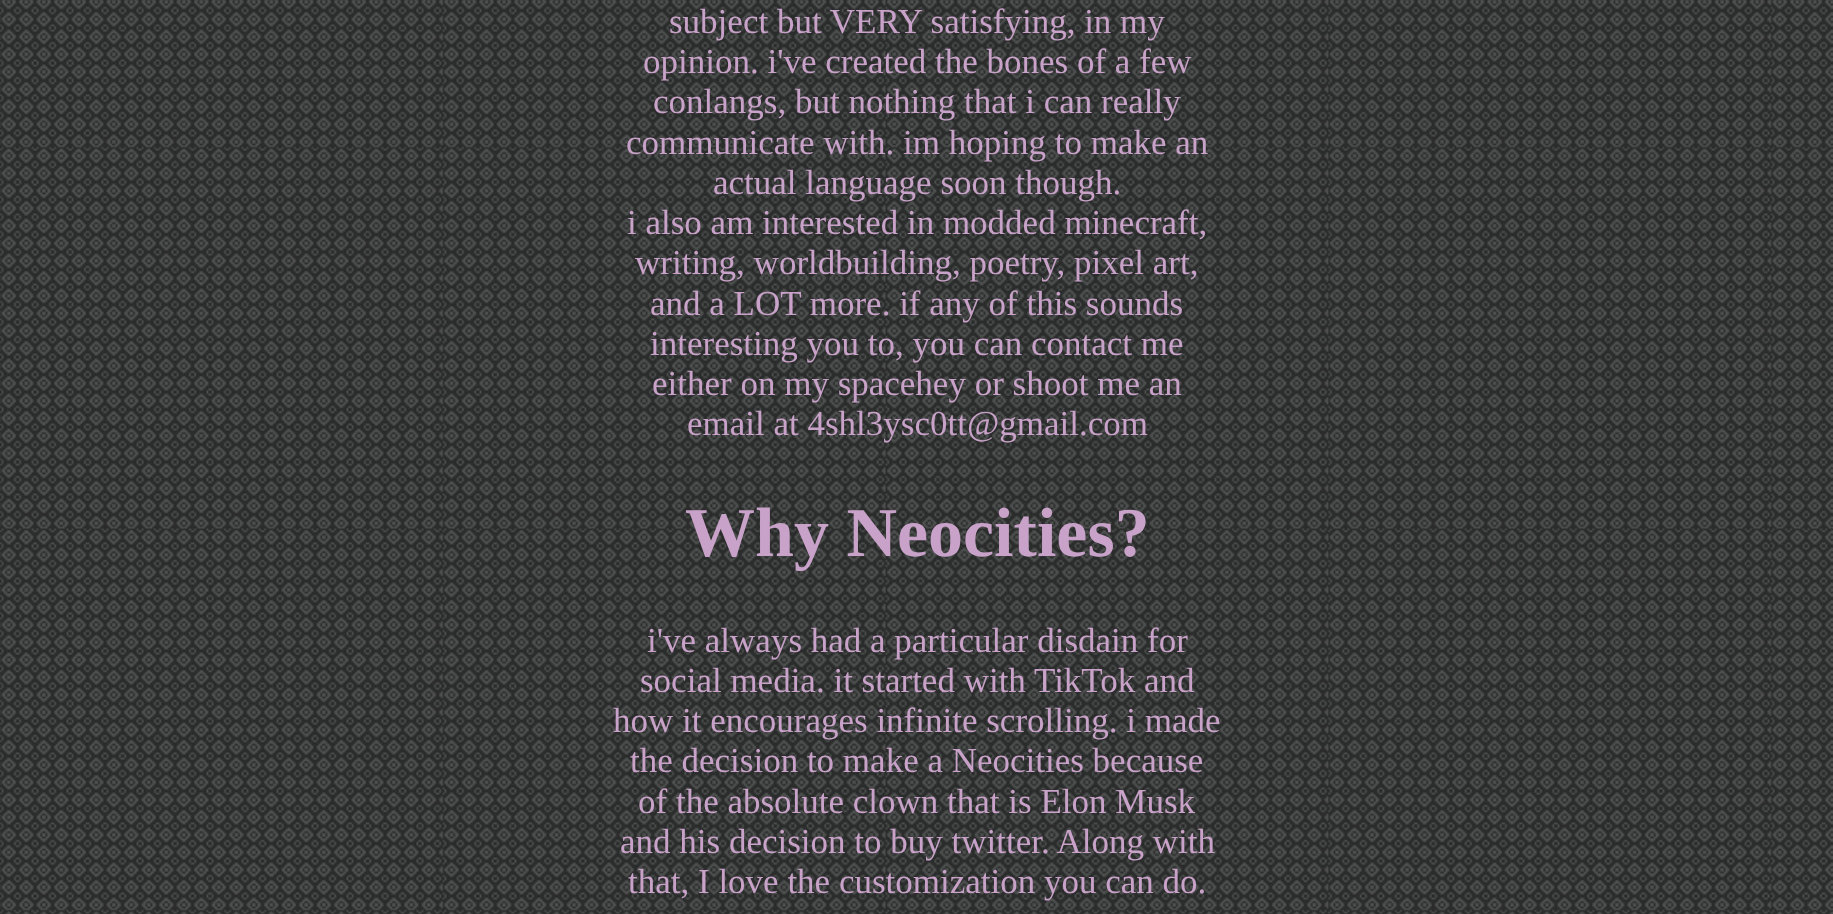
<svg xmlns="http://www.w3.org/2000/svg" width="1833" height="914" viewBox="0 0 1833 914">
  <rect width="100%" height="100%" fill="#ffffff"/>
  <image x="0" y="0" width="1833" height="914" href="img1.png"/>
  <text x="669" y="33" font-family="Liberation Serif" font-size="35" fill="#c8a2c8">subject but VERY satisfying, in my</text>
  <text x="643" y="73" font-family="Liberation Serif" font-size="35" fill="#c8a2c8">opinion. i've created the bones of a few</text>
  <text x="653" y="113" font-family="Liberation Serif" font-size="35" fill="#c8a2c8">conlangs, but nothing that i can really</text>
  <text x="626" y="154" font-family="Liberation Serif" font-size="35" fill="#c8a2c8">communicate with. im hoping to make an</text>
  <text x="713" y="194" font-family="Liberation Serif" font-size="35" fill="#c8a2c8">actual language soon though.</text>
  <text x="627" y="234" font-family="Liberation Serif" font-size="35" fill="#c8a2c8">i also am interested in modded minecraft,</text>
  <text x="635" y="274" font-family="Liberation Serif" font-size="35" fill="#c8a2c8">writing, worldbuilding, poetry, pixel art,</text>
  <text x="650" y="315" font-family="Liberation Serif" font-size="35" fill="#c8a2c8">and a LOT more. if any of this sounds</text>
  <text x="650" y="355" font-family="Liberation Serif" font-size="35" fill="#c8a2c8">interesting you to, you can contact me</text>
  <text x="652" y="395" font-family="Liberation Serif" font-size="35" fill="#c8a2c8">either on my spacehey or shoot me an</text>
  <text x="687" y="435" font-family="Liberation Serif" font-size="35" fill="#c8a2c8">email at 4shl3ysc0tt@gmail.com</text>
  <text x="685" y="556" font-family="Liberation Serif" font-size="70" font-weight="bold" fill="#c8a2c8">Why Neocities?</text>
  <text x="647" y="652" font-family="Liberation Serif" font-size="35" fill="#c8a2c8">i've always had a particular disdain for</text>
  <text x="640" y="692" font-family="Liberation Serif" font-size="35" fill="#c8a2c8">social media. it started with TikTok and</text>
  <text x="613" y="732" font-family="Liberation Serif" font-size="35" fill="#c8a2c8">how it encourages infinite scrolling. i made</text>
  <text x="630" y="772" font-family="Liberation Serif" font-size="35" fill="#c8a2c8">the decision to make a Neocities because</text>
  <text x="638" y="813" font-family="Liberation Serif" font-size="35" fill="#c8a2c8">of the absolute clown that is Elon Musk</text>
  <text x="620" y="853" font-family="Liberation Serif" font-size="35" fill="#c8a2c8">and his decision to buy twitter. Along with</text>
  <text x="628" y="893" font-family="Liberation Serif" font-size="35" fill="#c8a2c8">that, I love the customization you can do.</text>
</svg>
